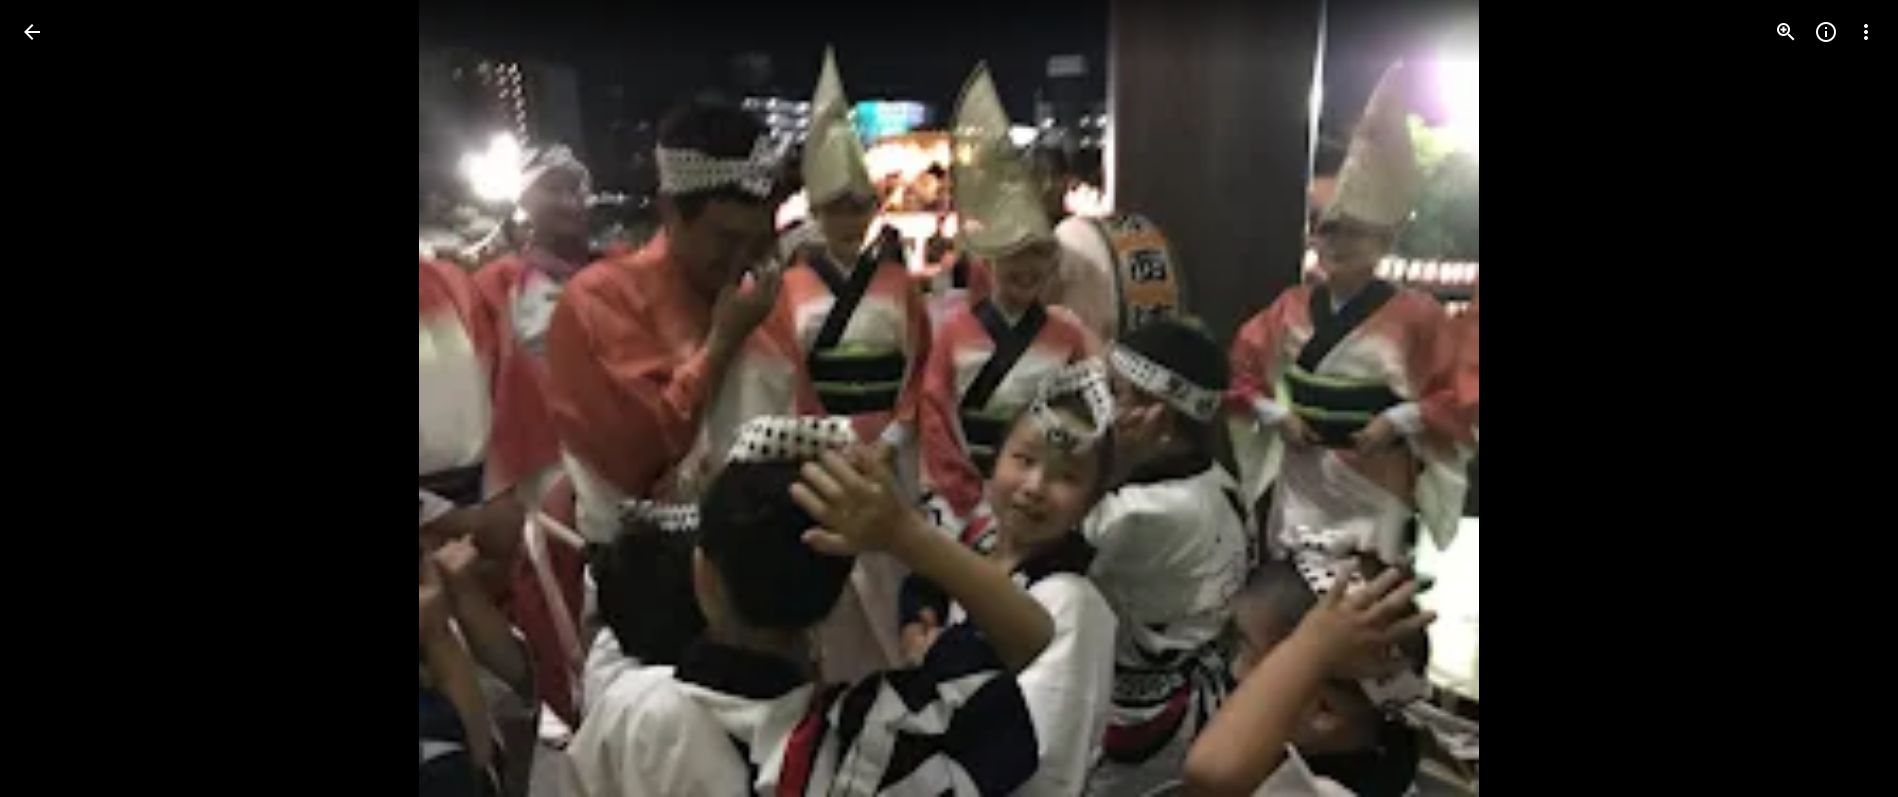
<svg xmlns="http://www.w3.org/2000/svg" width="1898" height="797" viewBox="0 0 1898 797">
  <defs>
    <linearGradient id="g1" gradientUnits="userSpaceOnUse" x1="949" y1="0" x2="949" y2="64"><stop offset="0" stop-color="#000000" stop-opacity="0.6"/><stop offset="1" stop-color="#000000" stop-opacity="0"/></linearGradient>
  </defs>
  <rect width="100%" height="100%" fill="#000000"/>
  <image x="419" y="0" width="1060" height="797" href="img5.png"/>
  <rect x="419" y="0" width="1060" height="62" fill="url(#g1)"/>
  <image x="24" y="24" width="16" height="16" href="img1.png"/>
  <image x="1777" y="23" width="18" height="18" href="img2.png"/>
  <image x="1816" y="22" width="20" height="20" href="img3.png"/>
  <image x="1864" y="24" width="4" height="16" href="img4.png"/>
</svg>
